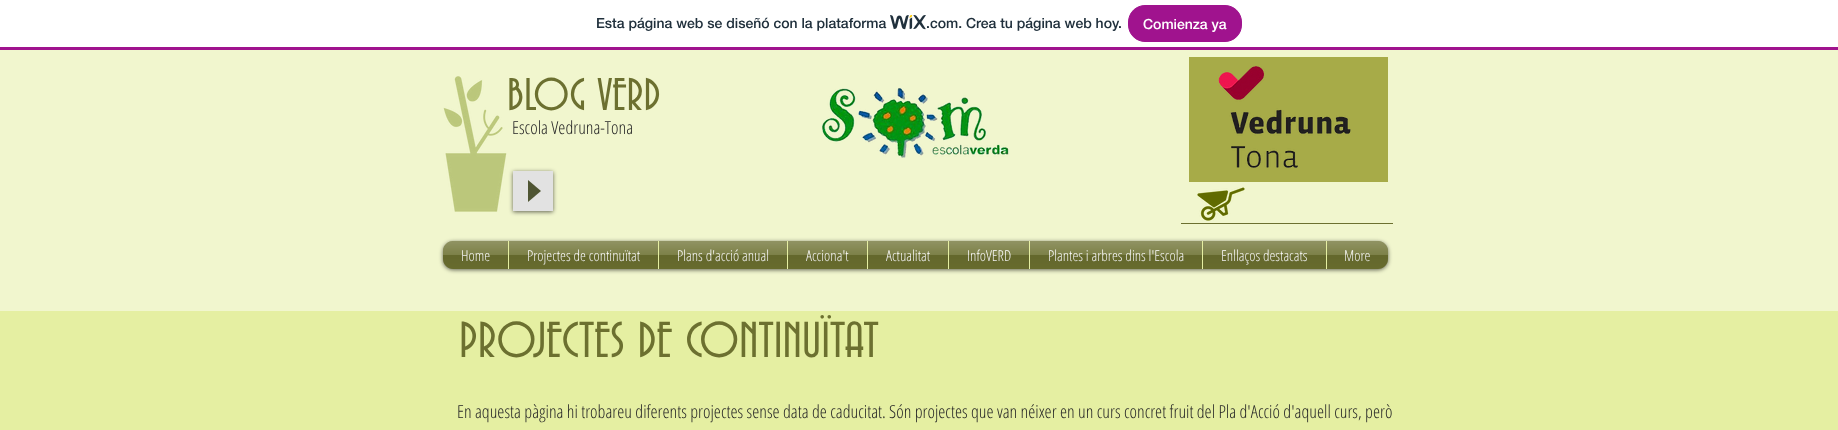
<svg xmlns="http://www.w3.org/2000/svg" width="1838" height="430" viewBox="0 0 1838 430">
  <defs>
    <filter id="blur1" x="-50%" y="-200%" width="200%" height="500%"><feGaussianBlur stdDeviation="2"/></filter>
  </defs>
  <rect width="100%" height="100%" fill="#ffffff"/>
  <rect x="0" y="47" width="1838" height="3" fill="#a0138e"/>
  <text x="596" y="28" font-family="'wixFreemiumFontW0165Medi'" font-size="14" font-weight="500" fill="#20303c">Esta página web se diseñó con la plataforma</text>
  <image x="890" y="15" width="36" height="15" href="img1.png"/>
  <text x="926" y="28" font-family="'wixFreemiumFontW0165Medi'" font-size="14" font-weight="500" fill="#20303c">.com. Crea tu página web hoy.</text>
  <rect x="1128.5" y="5.5" width="113" height="36" rx="16.5" fill="#a0138e" stroke="#a0138e"/>
  <text x="1143" y="29" font-family="'wixFreemiumFontW0165Medi'" font-size="14" font-weight="500" fill="#ffffff">Comienza ya</text>
  <rect x="0" y="50" width="1838" height="261" fill="#f1f6ce"/>
  <image x="443" y="76" width="64" height="136" href="img2.png"/>
  <text x="507" y="110" font-family="'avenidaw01'" font-size="48" fill="#6c7030">BLOG VERD</text>
  <text x="512" y="134" font-family="Open Sans Condensed" font-size="18" font-weight="300" fill="#272727">Escola Vedruna-Tona</text>
  <image x="822" y="88" width="187" height="70" href="img3.png"/>
  <rect x="1189" y="57" width="199" height="125" fill="#a7ab48"/>
  <image x="1218" y="66" width="133" height="102" href="img4.png"/>
  <rect x="513" y="172" width="40" height="40" fill="#000000" fill-opacity="0.6" filter="url(#blur1)"/>
  <rect x="513" y="171" width="40" height="40" fill="#e2e2e2"/>
  <path d="M528 202V180L541 191Z" fill="#4f5533"/>
  <image x="1197" y="187" width="48" height="34" href="img5.png"/>
  <rect x="1181" y="223" width="212" height="1" fill="#6c7030"/>
  <rect x="443" y="242" width="945" height="28" rx="10" fill="#000000" fill-opacity="0.6" filter="url(#blur1)"/>
  <image x="443" y="241" width="945" height="28" href="img6.png"/>
  <path d="M453 241H508V269H453C447.5 269 443 264.5 443 259V251C443 245.5 447.5 241 453 241Z" fill="#6c7030"/>
  <text x="461" y="261" font-family="Open Sans Condensed" font-size="15" font-weight="300" fill="#ffffff">Home</text>
  <image x="443" y="241" width="65" height="28" href="img7.png"/>
  <rect x="509" y="241" width="149" height="28" fill="#6c7030"/>
  <rect x="508" y="241" width="1" height="28" fill="#e5efa2"/>
  <text x="527" y="261" font-family="Open Sans Condensed" font-size="15" font-weight="300" fill="#ffffff">Projectes de continuïtat</text>
  <image x="509" y="241" width="149" height="28" href="img8.png"/>
  <rect x="659" y="241" width="128" height="28" fill="#6c7030"/>
  <rect x="658" y="241" width="1" height="28" fill="#e5efa2"/>
  <text x="677" y="261" font-family="Open Sans Condensed" font-size="15" font-weight="300" fill="#ffffff">Plans d'acció anual</text>
  <image x="659" y="241" width="128" height="28" href="img9.png"/>
  <rect x="788" y="241" width="79" height="28" fill="#6c7030"/>
  <rect x="787" y="241" width="1" height="28" fill="#e5efa2"/>
  <text x="806" y="261" font-family="Open Sans Condensed" font-size="15" font-weight="300" fill="#ffffff">Acciona't</text>
  <image x="788" y="241" width="79" height="28" href="img10.png"/>
  <rect x="868" y="241" width="80" height="28" fill="#6c7030"/>
  <rect x="867" y="241" width="1" height="28" fill="#e5efa2"/>
  <text x="886" y="261" font-family="Open Sans Condensed" font-size="15" font-weight="300" fill="#ffffff">Actualitat</text>
  <image x="868" y="241" width="80" height="28" href="img11.png"/>
  <rect x="949" y="241" width="80" height="28" fill="#6c7030"/>
  <rect x="948" y="241" width="1" height="28" fill="#e5efa2"/>
  <text x="967" y="261" font-family="Open Sans Condensed" font-size="15" font-weight="300" fill="#ffffff">InfoVERD</text>
  <image x="949" y="241" width="80" height="28" href="img12.png"/>
  <rect x="1030" y="241" width="172" height="28" fill="#6c7030"/>
  <rect x="1029" y="241" width="1" height="28" fill="#e5efa2"/>
  <text x="1048" y="261" font-family="Open Sans Condensed" font-size="15" font-weight="300" fill="#ffffff">Plantes i arbres dins l'Escola</text>
  <image x="1030" y="241" width="172" height="28" href="img13.png"/>
  <rect x="1203" y="241" width="123" height="28" fill="#6c7030"/>
  <rect x="1202" y="241" width="1" height="28" fill="#e5efa2"/>
  <text x="1221" y="261" font-family="Open Sans Condensed" font-size="15" font-weight="300" fill="#ffffff">Enllaços destacats</text>
  <image x="1203" y="241" width="123" height="28" href="img14.png"/>
  <path d="M1326 241H1378C1383.5 241 1388 245.5 1388 251V259C1388 264.5 1383.5 269 1378 269H1326Z" fill="#6c7030"/>
  <rect x="1326" y="241" width="1" height="28" fill="#e5efa2"/>
  <text x="1344" y="261" font-family="Open Sans Condensed" font-size="15" font-weight="300" fill="#ffffff">More</text>
  <image x="1327" y="241" width="61" height="28" href="img15.png"/>
  <rect x="0" y="311" width="1838" height="119" fill="#e5efa2"/>
  <text x="459" y="357" font-family="'avenidaw01'" font-size="53" fill="#6c7030">PROJECTES DE CONTINUÏTAT</text>
  <text x="457" y="418" font-family="Open Sans Condensed" font-size="18" font-weight="300" fill="#272727">En aquesta pàgina hi trobareu diferents projectes sense data de caducitat. Són projectes que van néixer en un curs concret fruit del Pla d'Acció d'aquell curs, però</text>
</svg>
